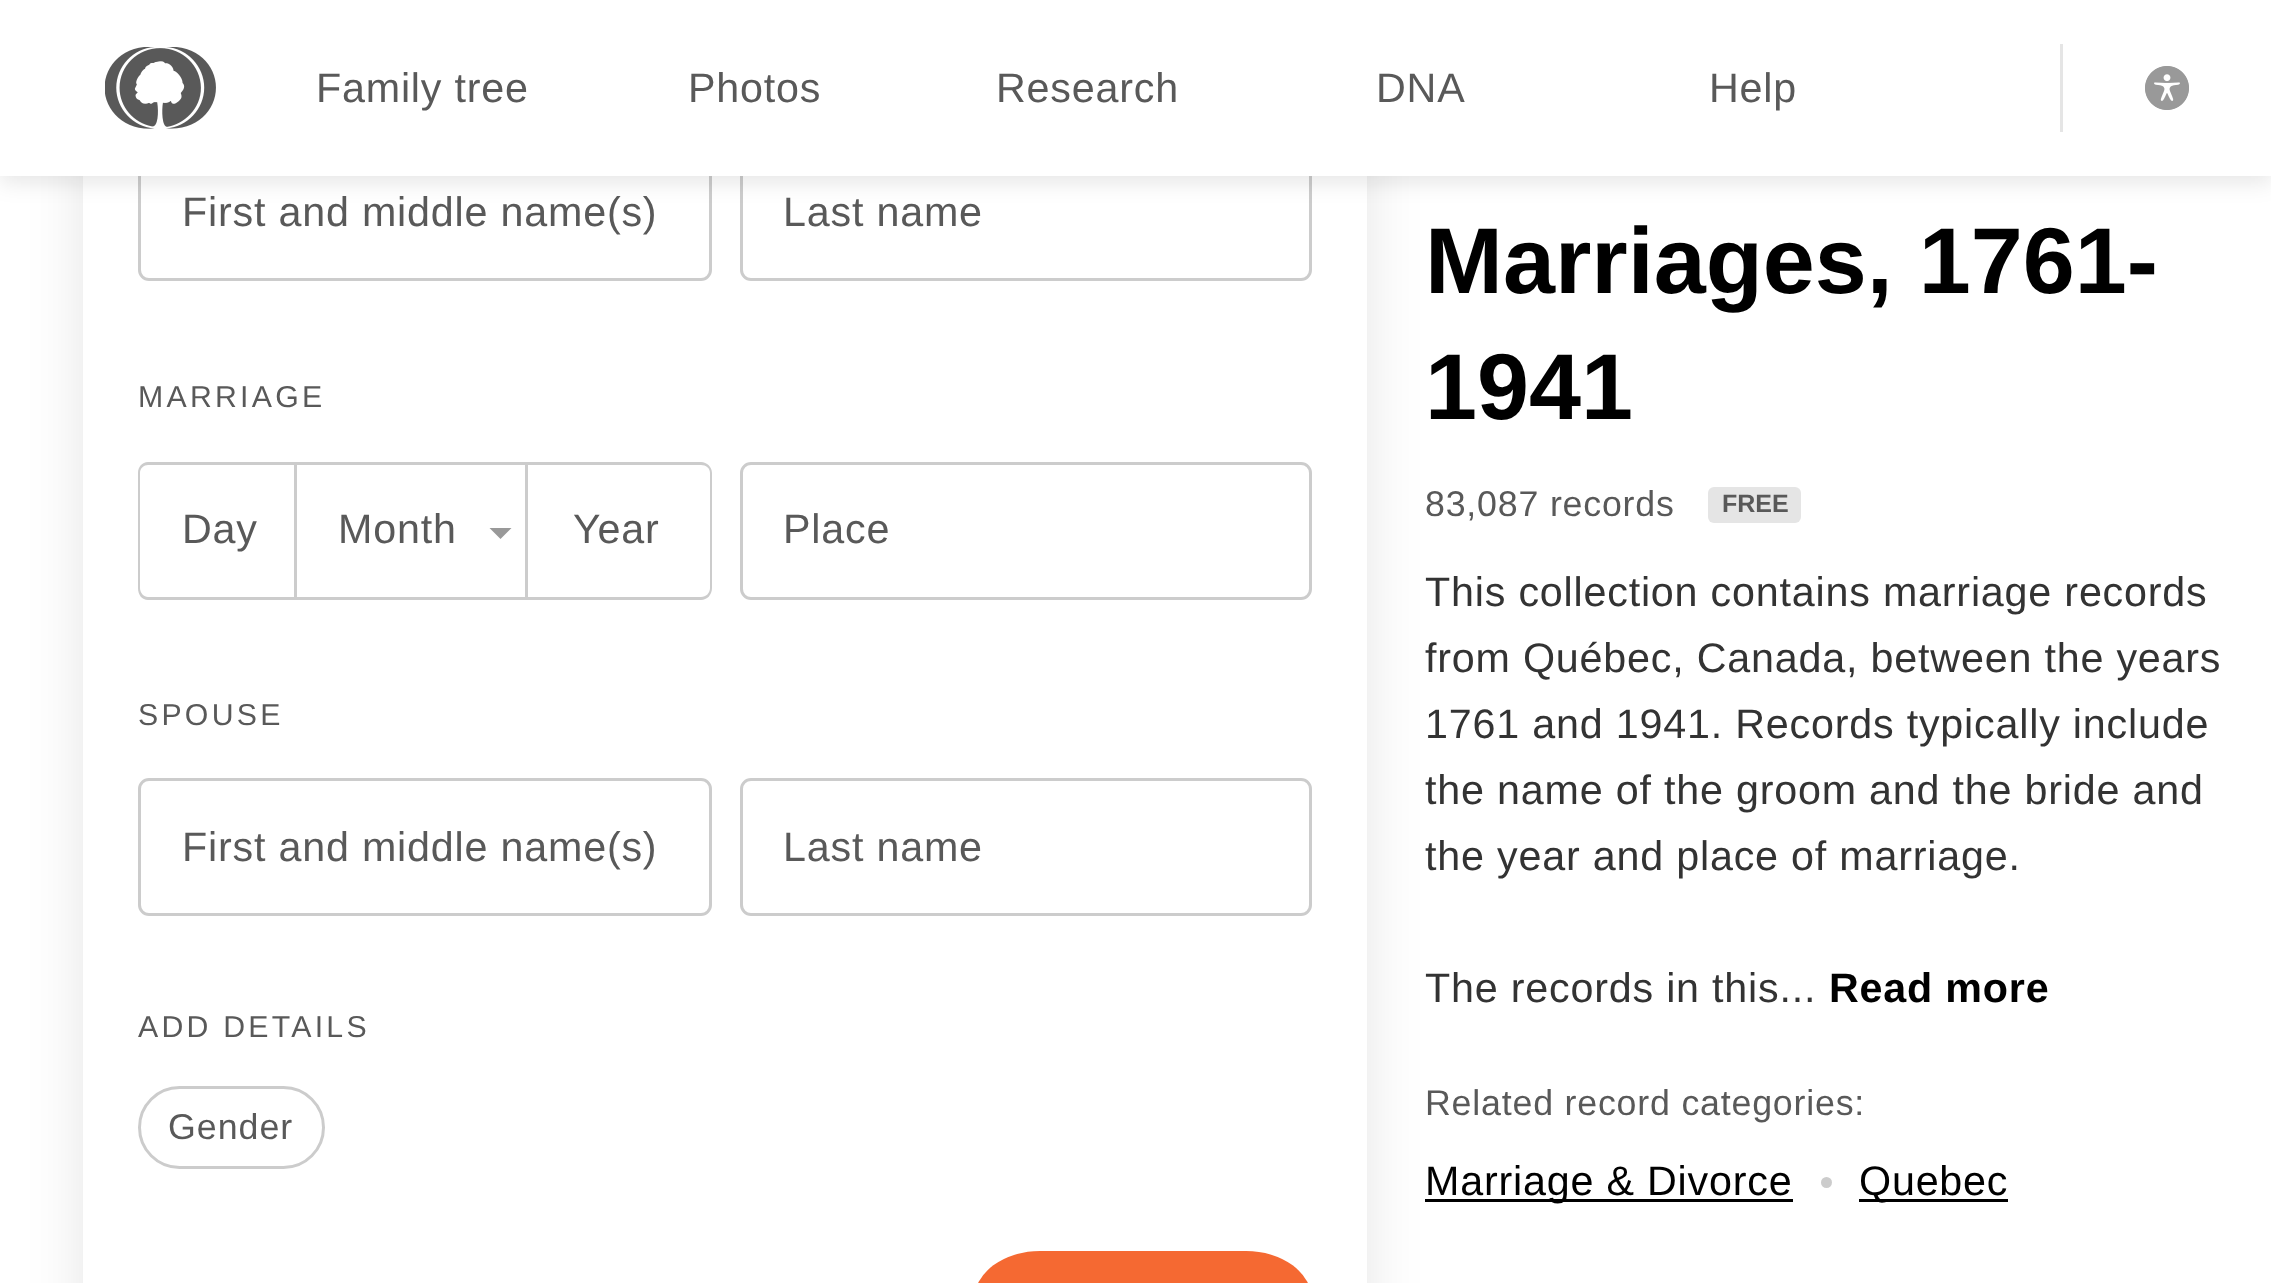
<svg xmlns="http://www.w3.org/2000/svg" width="2271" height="1283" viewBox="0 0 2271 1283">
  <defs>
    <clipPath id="clip1"><path d="M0 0H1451V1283H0ZM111-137H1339C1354.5-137 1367-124.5 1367-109V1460C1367 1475.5 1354.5 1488 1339 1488H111C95.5 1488 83 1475.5 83 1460V-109C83-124.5 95.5-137 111-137Z" clip-rule="evenodd"/></clipPath>
    <filter id="blur1" x="-50%" y="-200%" width="200%" height="500%"><feGaussianBlur stdDeviation="27.5"/></filter>
    <filter id="blur2" x="-50%" y="-200%" width="200%" height="500%"><feGaussianBlur stdDeviation="11"/></filter>
  </defs>
  <rect width="100%" height="100%" fill="#ffffff"/>
  <g clip-path="url(#clip1)">
    <rect x="83" y="-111" width="1284" height="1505" rx="28" fill="#000000" fill-opacity="0.1" filter="url(#blur1)"/>
  </g>
  <rect x="139.5" y="144.5" width="571" height="135" rx="9.5" fill="none" stroke="#cccccc" stroke-width="3"/>
  <rect x="741.5" y="144.5" width="569" height="135" rx="9.5" fill="none" stroke="#cccccc" stroke-width="3"/>
  <rect x="0" y="6" width="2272" height="176" fill="#000000" fill-opacity="0.1" filter="url(#blur2)"/>
  <rect x="0" y="0" width="2271" height="176" fill="#ffffff"/>
  <image x="105" y="47" width="111" height="82" href="img1.png"/>
  <text x="316" y="102" font-family="Liberation Sans" font-size="41.25" letter-spacing="0.8" fill="#595959">Family tree</text>
  <text x="688" y="102" font-family="Liberation Sans" font-size="41.25" letter-spacing="0.8" fill="#595959">Photos</text>
  <text x="996" y="102" font-family="Liberation Sans" font-size="41.25" letter-spacing="0.8" fill="#595959">Research</text>
  <text x="1376" y="102" font-family="Liberation Sans" font-size="41.25" letter-spacing="0.8" fill="#595959">DNA</text>
  <text x="1709" y="102" font-family="Liberation Sans" font-size="41.25" letter-spacing="0.8" fill="#595959">Help</text>
  <rect x="2060" y="44" width="3" height="88" fill="#e5e5e5"/>
  <image x="2145" y="66" width="44" height="44" href="img2.png"/>
  <image x="2145" y="66" width="44" height="44" href="img3.png"/>
  <text x="182" y="226" font-family="Liberation Sans" font-size="41.25" letter-spacing="0.8" fill="#595959">First and middle name(s)</text>
  <text x="783" y="226" font-family="Liberation Sans" font-size="41.25" letter-spacing="0.8" fill="#595959">Last name</text>
  <text x="138" y="407" font-family="Liberation Sans" font-size="30.25" letter-spacing="3.25" fill="#595959">MARRIAGE</text>
  <text x="182" y="543" font-family="Liberation Sans" font-size="41.25" letter-spacing="0.8" fill="#595959">Day</text>
  <path d="M148 462H294V600H148C142 600 138 595 138 588V473C138 467 142 462 148 462ZM148 465H294V597H148C144 597 140 593 140 588V473C140 468 144 465 148 465Z" fill="#cccccc" fill-rule="evenodd"/>
  <rect x="294" y="462" width="234" height="3" fill="#cccccc"/>
  <rect x="294" y="597" width="234" height="3" fill="#cccccc"/>
  <rect x="294" y="465" width="3" height="132" fill="#cccccc"/>
  <path d="M489.5 528H511.5L500.5 539Z" fill="#999999"/>
  <rect x="525" y="465" width="3" height="132" fill="#cccccc"/>
  <text x="338" y="543" font-family="Liberation Sans" font-size="41.25" letter-spacing="0.8" fill="#595959">Month</text>
  <text x="573" y="543" font-family="Liberation Sans" font-size="41.25" letter-spacing="0.8" fill="#595959">Year</text>
  <path d="M528 462H701C707 462 712 467 712 473V588C712 595 707 600 701 600H528ZM528 465H701C706 465 710 468 710 473V588C710 593 706 597 701 597H528Z" fill="#cccccc" fill-rule="evenodd"/>
  <rect x="741.5" y="463.5" width="569" height="135" rx="9.5" fill="none" stroke="#cccccc" stroke-width="3"/>
  <text x="783" y="543" font-family="Liberation Sans" font-size="41.25" letter-spacing="0.8" fill="#595959">Place</text>
  <text x="138" y="725" font-family="Liberation Sans" font-size="30.25" letter-spacing="3.25" fill="#595959">SPOUSE</text>
  <rect x="139.5" y="779.5" width="571" height="135" rx="9.5" fill="none" stroke="#cccccc" stroke-width="3"/>
  <text x="182" y="861" font-family="Liberation Sans" font-size="41.25" letter-spacing="0.8" fill="#595959">First and middle name(s)</text>
  <rect x="741.5" y="779.5" width="569" height="135" rx="9.5" fill="none" stroke="#cccccc" stroke-width="3"/>
  <text x="783" y="861" font-family="Liberation Sans" font-size="41.25" letter-spacing="0.8" fill="#595959">Last name</text>
  <text x="138" y="1037" font-family="Liberation Sans" font-size="30.25" letter-spacing="3.25" fill="#595959">ADD DETAILS</text>
  <rect x="139.5" y="1087.5" width="184" height="80" rx="40" fill="none" stroke="#cccccc" stroke-width="3"/>
  <text x="168" y="1139" font-family="Liberation Sans" font-size="35.75" letter-spacing="1" fill="#595959">Gender</text>
  <rect x="974" y="1251" width="338" height="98" rx="66" fill="#f56932"/>
  <text x="1425" y="293" font-family="Liberation Sans" font-size="93.5" font-weight="bold" fill="#000000">Marriages, 1761-</text>
  <text x="1425" y="419" font-family="Liberation Sans" font-size="93.5" font-weight="bold" fill="#000000">1941</text>
  <text x="1425" y="516" font-family="Liberation Sans" font-size="35.75" letter-spacing="0.8" fill="#595959">83,087 records</text>
  <rect x="1708" y="487" width="93" height="36" rx="6" fill="#e5e5e5"/>
  <text x="1722" y="512" font-family="Liberation Sans" font-size="25" font-weight="bold" fill="#595959">FREE</text>
  <text x="1425" y="606" font-family="Liberation Sans" font-size="41.25" letter-spacing="0.8" fill="#333333">This collection contains marriage records</text>
  <text x="1425" y="672" font-family="Liberation Sans" font-size="41.25" letter-spacing="0.8" fill="#333333">from Québec, Canada, between the years</text>
  <text x="1425" y="738" font-family="Liberation Sans" font-size="41.25" letter-spacing="0.8" fill="#333333">1761 and 1941. Records typically include</text>
  <text x="1425" y="804" font-family="Liberation Sans" font-size="41.25" letter-spacing="0.8" fill="#333333">the name of the groom and the bride and</text>
  <text x="1425" y="870" font-family="Liberation Sans" font-size="41.25" letter-spacing="0.8" fill="#333333">the year and place of marriage.</text>
  <text x="1425" y="1002" font-family="Liberation Sans" font-size="41.25" letter-spacing="0.8" fill="#333333">The records in this...</text>
  <text x="1829" y="1002" font-family="Liberation Sans" font-size="41.25" font-weight="bold" letter-spacing="0.8" fill="#000000">Read more</text>
  <text x="1425" y="1115" font-family="Liberation Sans" font-size="35.75" letter-spacing="0.8" fill="#595959">Related record categories:</text>
  <rect x="1425" y="1199" width="368" height="3" fill="#000000"/>
  <text x="1425" y="1195" font-family="Liberation Sans" font-size="41.25" letter-spacing="0.8" fill="#000000">Marriage &amp; Divorce</text>
  <circle cx="1826.5" cy="1182.5" r="5.5" fill="#cccccc"/>
  <rect x="1859" y="1199" width="149" height="3" fill="#000000"/>
  <text x="1859" y="1195" font-family="Liberation Sans" font-size="41.25" letter-spacing="0.8" fill="#000000">Quebec</text>
</svg>
